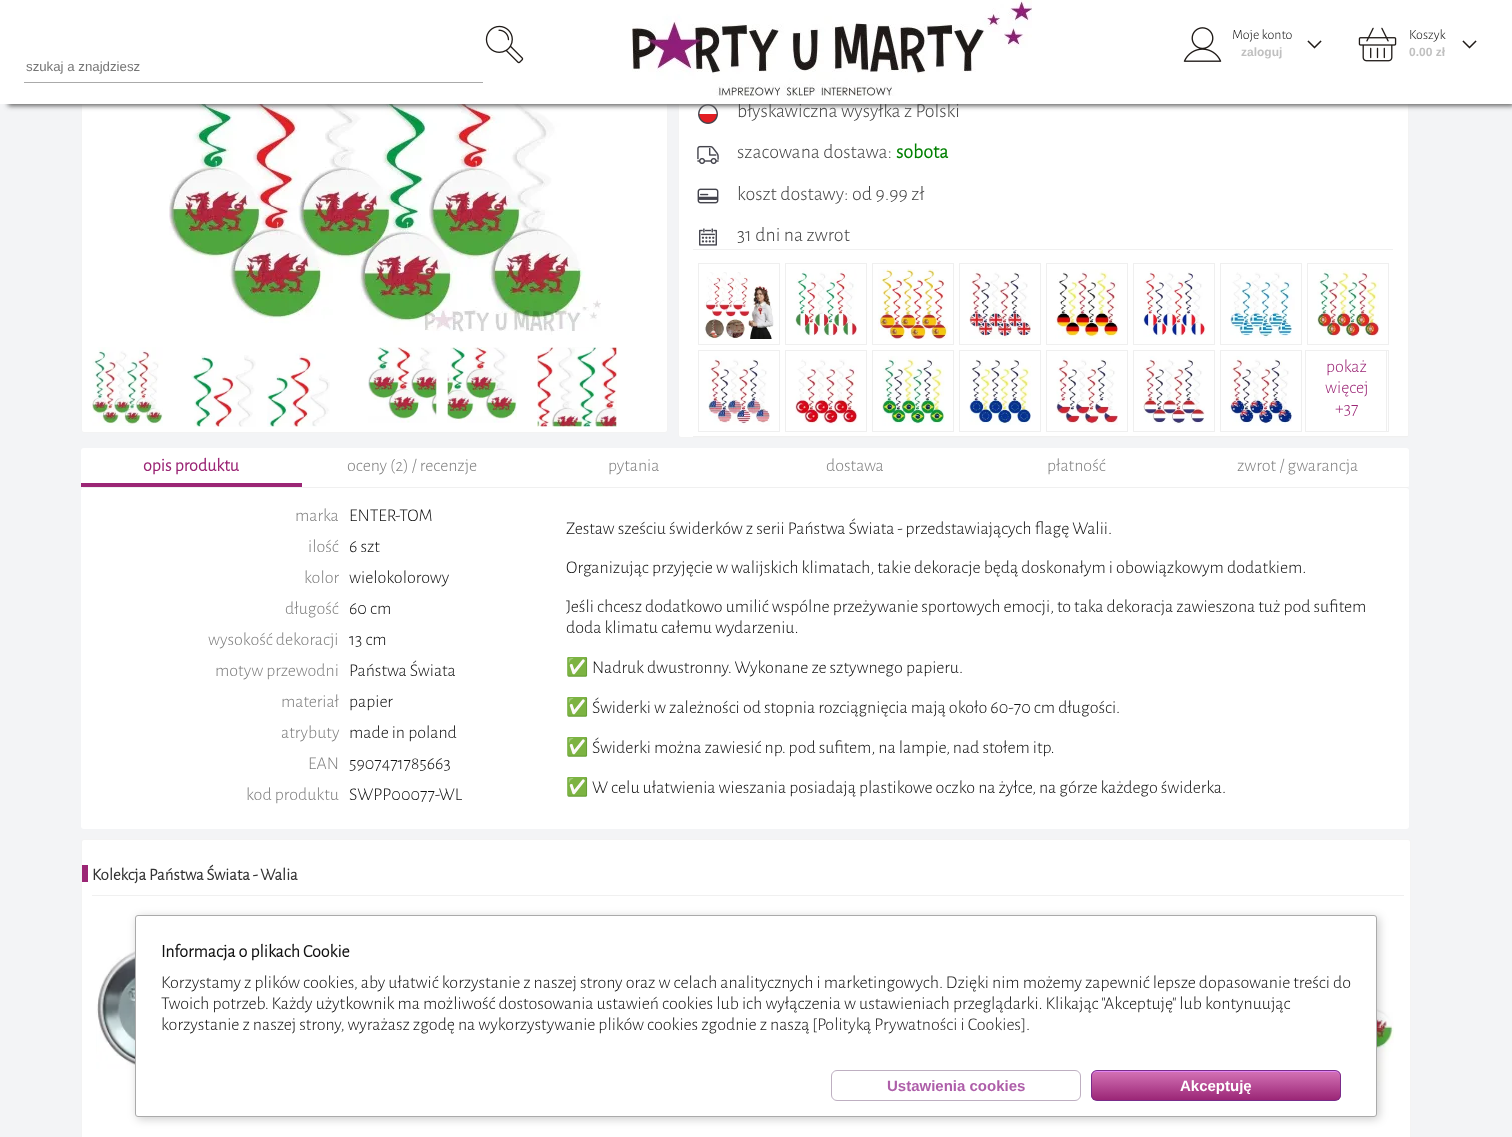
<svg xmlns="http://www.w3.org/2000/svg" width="1512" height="1137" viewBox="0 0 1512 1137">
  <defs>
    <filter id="blur1" x="-50%" y="-200%" width="200%" height="500%"><feGaussianBlur stdDeviation="2.5"/></filter>
    <filter id="blur2" x="-50%" y="-200%" width="200%" height="500%"><feGaussianBlur stdDeviation="5"/></filter>
    <clipPath id="clip1"><rect x="1091" y="1070" width="250" height="31" rx="6"/></clipPath>
    <linearGradient id="g1" gradientUnits="userSpaceOnUse" x1="1216" y1="1071" x2="1216" y2="1100"><stop offset="0.05" stop-color="#d16fb3"/><stop offset="1" stop-color="#9b2676"/></linearGradient>
  </defs>
  <rect width="100%" height="100%" fill="#f3f4f6"/>
  <rect x="81.5" y="-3.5" width="586" height="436" rx="2.5" fill="#ffffff" stroke="#f3f3f3"/>
  <image x="169" y="104" width="432" height="231" href="img6.png"/>
  <rect x="678.5" y="-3.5" width="730" height="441" rx="2.5" fill="#ffffff" stroke="#f3f3f3"/>
  <image x="698" y="104" width="20" height="20" href="img13.png"/>
  <rect x="8" y="8" width="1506" height="98" fill="#666666" filter="url(#blur1)"/>
  <text x="737" y="117" font-family="Alegreya Sans" font-size="20" font-weight="300" fill="#444444">błyskawiczna wysyłka z Polski</text>
  <rect x="0" y="0" width="1512" height="104" fill="#ffffff"/>
  <image x="632" y="0" width="400" height="96" href="img1.png"/>
  <image x="1183" y="27" width="39" height="35" href="img2.png"/>
  <text x="1232" y="39" font-family="Alegreya Sans" font-size="14" font-weight="300" fill="#111111">Moje konto</text>
  <text x="1241" y="56" font-family="Liberation Sans" font-size="12" font-weight="bold" fill="#c0c0c0">zaloguj</text>
  <image x="1307" y="40" width="15" height="9" href="img3.png"/>
  <image x="1358" y="27" width="39" height="35" href="img4.png"/>
  <text x="1409" y="39" font-family="Alegreya Sans" font-size="14" font-weight="300" fill="#111111">Koszyk</text>
  <text x="1409" y="56" font-family="Liberation Sans" font-size="12" font-weight="bold" fill="#c0c0c0">0.00 zł</text>
  <image x="1462" y="40" width="15" height="9" href="img3.png"/>
  <image x="485" y="25" width="39" height="39" href="img5.png"/>
  <rect x="24" y="82" width="459" height="1" fill="#aaaaaa"/>
  <text x="26" y="71" font-family="Liberation Sans" font-size="13.25" fill="#757575">szukaj a znajdziesz</text>
  <image x="90" y="347" width="73" height="79" href="img7.png"/>
  <image x="191" y="355" width="65" height="72" href="img8.png"/>
  <image x="267" y="353" width="63" height="74" href="img9.png"/>
  <image x="368" y="347" width="69" height="76" href="img10.png"/>
  <image x="447" y="347" width="70" height="76" href="img11.png"/>
  <image x="537" y="347" width="80" height="80" href="img12.png"/>
  <rect x="693" y="249" width="700" height="1" fill="#f0f0f0"/>
  <image x="697" y="145" width="22" height="20" href="img14.png"/>
  <text x="737" y="158" font-family="Alegreya Sans" font-size="20" font-weight="300" fill="#444444">szacowana dostawa:</text>
  <text x="896" y="158" font-family="Alegreya Sans" font-size="20" font-weight="bold" fill="#008000">sobota</text>
  <image x="697" y="188" width="22" height="16" href="img15.png"/>
  <text x="737" y="200" font-family="Alegreya Sans" font-size="20" font-weight="300" fill="#444444">koszt dostawy: od 9.99 zł</text>
  <image x="699" y="228" width="18" height="18" href="img16.png"/>
  <text x="737" y="241" font-family="Alegreya Sans" font-size="20" font-weight="300" fill="#444444">31 dni na zwrot</text>
  <rect x="693" y="436" width="715" height="1" fill="#f0f0f0"/>
  <rect x="698.5" y="263.5" width="81" height="81" fill="none" stroke="#efefef"/>
  <image x="704" y="272" width="70" height="67" href="img17.png"/>
  <rect x="785.5" y="263.5" width="81" height="81" fill="none" stroke="#efefef"/>
  <image x="795" y="269" width="62" height="67" href="img18.png"/>
  <rect x="872.5" y="263.5" width="81" height="81" fill="none" stroke="#efefef"/>
  <image x="878" y="269" width="70" height="70" href="img19.png"/>
  <rect x="959.5" y="263.5" width="81" height="81" fill="none" stroke="#efefef"/>
  <image x="969" y="269" width="62" height="70" href="img20.png"/>
  <rect x="1046.5" y="263.5" width="81" height="81" fill="none" stroke="#efefef"/>
  <image x="1055" y="269" width="64" height="70" href="img21.png"/>
  <rect x="1133.5" y="263.5" width="81" height="81" fill="none" stroke="#efefef"/>
  <image x="1143" y="271" width="63" height="66" href="img22.png"/>
  <rect x="1220.5" y="263.5" width="81" height="81" fill="none" stroke="#efefef"/>
  <image x="1230" y="272" width="65" height="66" href="img23.png"/>
  <rect x="1307.5" y="263.5" width="81" height="81" fill="none" stroke="#efefef"/>
  <image x="1317" y="269" width="63" height="70" href="img24.png"/>
  <rect x="698.5" y="350.5" width="81" height="81" fill="none" stroke="#efefef"/>
  <image x="708" y="356" width="62" height="70" href="img25.png"/>
  <rect x="785.5" y="350.5" width="81" height="81" fill="none" stroke="#efefef"/>
  <image x="795" y="359" width="63" height="67" href="img26.png"/>
  <rect x="872.5" y="350.5" width="81" height="81" fill="none" stroke="#efefef"/>
  <image x="882" y="356" width="63" height="70" href="img27.png"/>
  <rect x="959.5" y="350.5" width="81" height="81" fill="none" stroke="#efefef"/>
  <image x="969" y="359" width="62" height="66" href="img28.png"/>
  <rect x="1046.5" y="350.5" width="81" height="81" fill="none" stroke="#efefef"/>
  <image x="1056" y="356" width="62" height="69" href="img29.png"/>
  <rect x="1133.5" y="350.5" width="81" height="81" fill="none" stroke="#efefef"/>
  <image x="1143" y="356" width="62" height="68" href="img30.png"/>
  <rect x="1220.5" y="350.5" width="81" height="81" fill="none" stroke="#efefef"/>
  <image x="1229" y="356" width="63" height="70" href="img31.png"/>
  <rect x="1307.5" y="350.5" width="81" height="81" fill="none" stroke="#efefef"/>
  <rect x="1307" y="351" width="1" height="80" fill="#ffffff"/>
  <rect x="1305.5" y="350.5" width="81" height="81" fill="none" stroke="#efefef"/>
  <text x="1326" y="372" font-family="Alegreya Sans" font-size="18" font-weight="300" fill="#9b2675">pokaż</text>
  <text x="1325" y="393" font-family="Alegreya Sans" font-size="18" font-weight="300" fill="#9b2675">więcej</text>
  <text x="1335" y="414" font-family="Alegreya Sans" font-size="18" font-weight="300" fill="#9b2675">+37</text>
  <rect x="81" y="448" width="1328" height="40" rx="3" fill="#ffffff"/>
  <rect x="83" y="487" width="1325" height="1" fill="#f0f0f0"/>
  <rect x="81" y="483" width="221" height="4" fill="#9b2675"/>
  <text x="143" y="471" font-family="Alegreya Sans" font-size="18" font-weight="bold" fill="#9b2675">opis produktu</text>
  <text x="347" y="471" font-family="Alegreya Sans" font-size="18" font-weight="300" fill="#808080">oceny (2) / recenzje</text>
  <text x="608" y="471" font-family="Alegreya Sans" font-size="18" font-weight="300" fill="#808080">pytania</text>
  <text x="826" y="471" font-family="Alegreya Sans" font-size="18" font-weight="300" fill="#808080">dostawa</text>
  <text x="1047" y="471" font-family="Alegreya Sans" font-size="18" font-weight="300" fill="#808080">płatność</text>
  <text x="1237" y="471" font-family="Alegreya Sans" font-size="18" font-weight="300" fill="#808080">zwrot / gwarancja</text>
  <rect x="81" y="488" width="1328" height="341" rx="3" fill="#ffffff"/>
  <text x="295" y="521" font-family="Alegreya Sans" font-size="18" font-weight="300" fill="#808080">marka</text>
  <text x="349" y="521" font-family="Alegreya Sans" font-size="18" font-weight="300" fill="#111111">ENTER-TOM</text>
  <text x="308" y="552" font-family="Alegreya Sans" font-size="18" font-weight="300" fill="#808080">ilość</text>
  <text x="349" y="552" font-family="Alegreya Sans" font-size="18" font-weight="300" fill="#111111">6 szt</text>
  <text x="304" y="583" font-family="Alegreya Sans" font-size="18" font-weight="300" fill="#808080">kolor</text>
  <text x="349" y="583" font-family="Alegreya Sans" font-size="18" font-weight="300" fill="#111111">wielokolorowy</text>
  <text x="285" y="614" font-family="Alegreya Sans" font-size="18" font-weight="300" fill="#808080">długość</text>
  <text x="349" y="614" font-family="Alegreya Sans" font-size="18" font-weight="300" fill="#111111">60 cm</text>
  <text x="208" y="645" font-family="Alegreya Sans" font-size="18" font-weight="300" fill="#808080">wysokość dekoracji</text>
  <text x="349" y="645" font-family="Alegreya Sans" font-size="18" font-weight="300" fill="#111111">13 cm</text>
  <text x="215" y="676" font-family="Alegreya Sans" font-size="18" font-weight="300" fill="#808080">motyw przewodni</text>
  <text x="349" y="676" font-family="Alegreya Sans" font-size="18" font-weight="300" fill="#111111">Państwa Świata</text>
  <text x="281" y="707" font-family="Alegreya Sans" font-size="18" font-weight="300" fill="#808080">materiał</text>
  <text x="349" y="707" font-family="Alegreya Sans" font-size="18" font-weight="300" fill="#111111">papier</text>
  <text x="281" y="738" font-family="Alegreya Sans" font-size="18" font-weight="300" fill="#808080">atrybuty</text>
  <text x="349" y="738" font-family="Alegreya Sans" font-size="18" font-weight="300" fill="#111111">made in poland</text>
  <text x="308" y="769" font-family="Alegreya Sans" font-size="18" font-weight="300" fill="#808080">EAN</text>
  <text x="349" y="769" font-family="Alegreya Sans" font-size="18" font-weight="300" fill="#111111">5907471785663</text>
  <text x="246" y="800" font-family="Alegreya Sans" font-size="18" font-weight="300" fill="#808080">kod produktu</text>
  <text x="349" y="800" font-family="Alegreya Sans" font-size="18" font-weight="300" fill="#111111">SWPP00077-WL</text>
  <text x="566" y="534" font-family="Alegreya Sans" font-size="18" font-weight="300" fill="#111111">Zestaw sześciu świderków z serii Państwa Świata - przedstawiających flagę Walii.</text>
  <text x="566" y="573" font-family="Alegreya Sans" font-size="18" font-weight="300" fill="#111111">Organizując przyjęcie w walijskich klimatach, takie dekoracje będą doskonałym i obowiązkowym dodatkiem.</text>
  <text x="566" y="612" font-family="Alegreya Sans" font-size="18" font-weight="300" fill="#111111">Jeśli chcesz dodatkowo umilić wspólne przeżywanie sportowych emocji, to taka dekoracja zawieszona tuż pod sufitem</text>
  <text x="566" y="633" font-family="Alegreya Sans" font-size="18" font-weight="300" fill="#111111">doda klimatu całemu wydarzeniu.</text>
  <text x="566" y="673" font-family="Noto Color Emoji" font-size="18" fill="#111111">✅</text>
  <text x="592" y="673" font-family="Alegreya Sans" font-size="18" font-weight="300" fill="#111111">Nadruk dwustronny. Wykonane ze sztywnego papieru.</text>
  <text x="566" y="713" font-family="Noto Color Emoji" font-size="18" fill="#111111">✅</text>
  <text x="592" y="713" font-family="Alegreya Sans" font-size="18" font-weight="300" fill="#111111">Świderki w zależności od stopnia rozciągnięcia mają około 60-70 cm długości.</text>
  <text x="566" y="753" font-family="Noto Color Emoji" font-size="18" fill="#111111">✅</text>
  <text x="592" y="753" font-family="Alegreya Sans" font-size="18" font-weight="300" fill="#111111">Świderki można zawiesić np. pod sufitem, na lampie, nad stołem itp.</text>
  <text x="566" y="793" font-family="Noto Color Emoji" font-size="18" fill="#111111">✅</text>
  <text x="592" y="793" font-family="Alegreya Sans" font-size="18" font-weight="300" fill="#111111">W celu ułatwienia wieszania posiadają plastikowe oczko na żyłce, na górze każdego świderka.</text>
  <rect x="81.5" y="839.5" width="1329" height="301" rx="2.5" fill="#ffffff" stroke="#f3f3f3"/>
  <rect x="82" y="865" width="6" height="17" fill="#9b2675"/>
  <rect x="92" y="895" width="1312" height="1" fill="#f0f0f0"/>
  <text x="92" y="880" font-family="Alegreya Sans" font-size="17" font-weight="bold" fill="#333333">Kolekcja Państwa Świata - Walia</text>
  <image x="96" y="948" width="39" height="147" href="img32.png"/>
  <image x="1377" y="961" width="17" height="125" href="img33.png"/>
  <rect x="137" y="917" width="1242" height="202" rx="3" fill="#000000" fill-opacity="0.2" filter="url(#blur2)"/>
  <rect x="135.5" y="915.5" width="1241" height="201" rx="2.5" fill="#ffffff" stroke="#aaaaaa"/>
  <text x="161" y="957" font-family="Alegreya Sans" font-size="18" font-weight="bold" fill="#111111">Informacja o plikach Cookie</text>
  <text x="161" y="988" font-family="Alegreya Sans" font-size="18" font-weight="300" fill="#111111">Korzystamy z plików cookies, aby ułatwić korzystanie z naszej strony oraz w celach analitycznych i marketingowych. Dzięki nim możemy zapewnić lepsze dopasowanie treści do</text>
  <text x="161" y="1009" font-family="Alegreya Sans" font-size="18" font-weight="300" fill="#111111">Twoich potrzeb. Każdy użytkownik ma możliwość dostosowania ustawień cookies lub ich wyłączenia w ustawieniach przeglądarki. Klikając "Akceptuję" lub kontynuując</text>
  <text x="161" y="1030" font-family="Alegreya Sans" font-size="18" font-weight="300" fill="#111111">korzystanie z naszej strony, wyrażasz zgodę na wykorzystywanie plików cookies zgodnie z naszą</text>
  <text x="812" y="1030" font-family="Alegreya Sans" font-size="18" font-weight="300" fill="#222222">[Polityką Prywatności i Cookies]</text>
  <text x="1026" y="1030" font-family="Alegreya Sans" font-size="18" font-weight="300" fill="#111111">.</text>
  <rect x="831.5" y="1070.5" width="249" height="30" rx="5.5" fill="none" stroke="#beafc1"/>
  <text x="887" y="1091" font-family="Liberation Sans" font-size="15" font-weight="bold" fill="#ae5fa9">Ustawienia cookies</text>
  <g clip-path="url(#clip1)">
    <rect x="1091" y="1071" width="250" height="29" fill="url(#g1)"/>
  </g>
  <path d="M1097 1072H1335C1338 1072 1340 1074 1340 1077V1076C1340 1073 1338 1071 1335 1071H1097C1094 1071 1092 1073 1092 1076V1077C1092 1074 1094 1072 1097 1072Z" fill="#e184f3"/>
  <rect x="1091.5" y="1070.5" width="249" height="30" rx="5.5" fill="none" stroke="#7a2c8a"/>
  <text x="1180" y="1091" font-family="Liberation Sans" font-size="15" font-weight="bold" fill="#ffffff">Akceptuję</text>
</svg>
